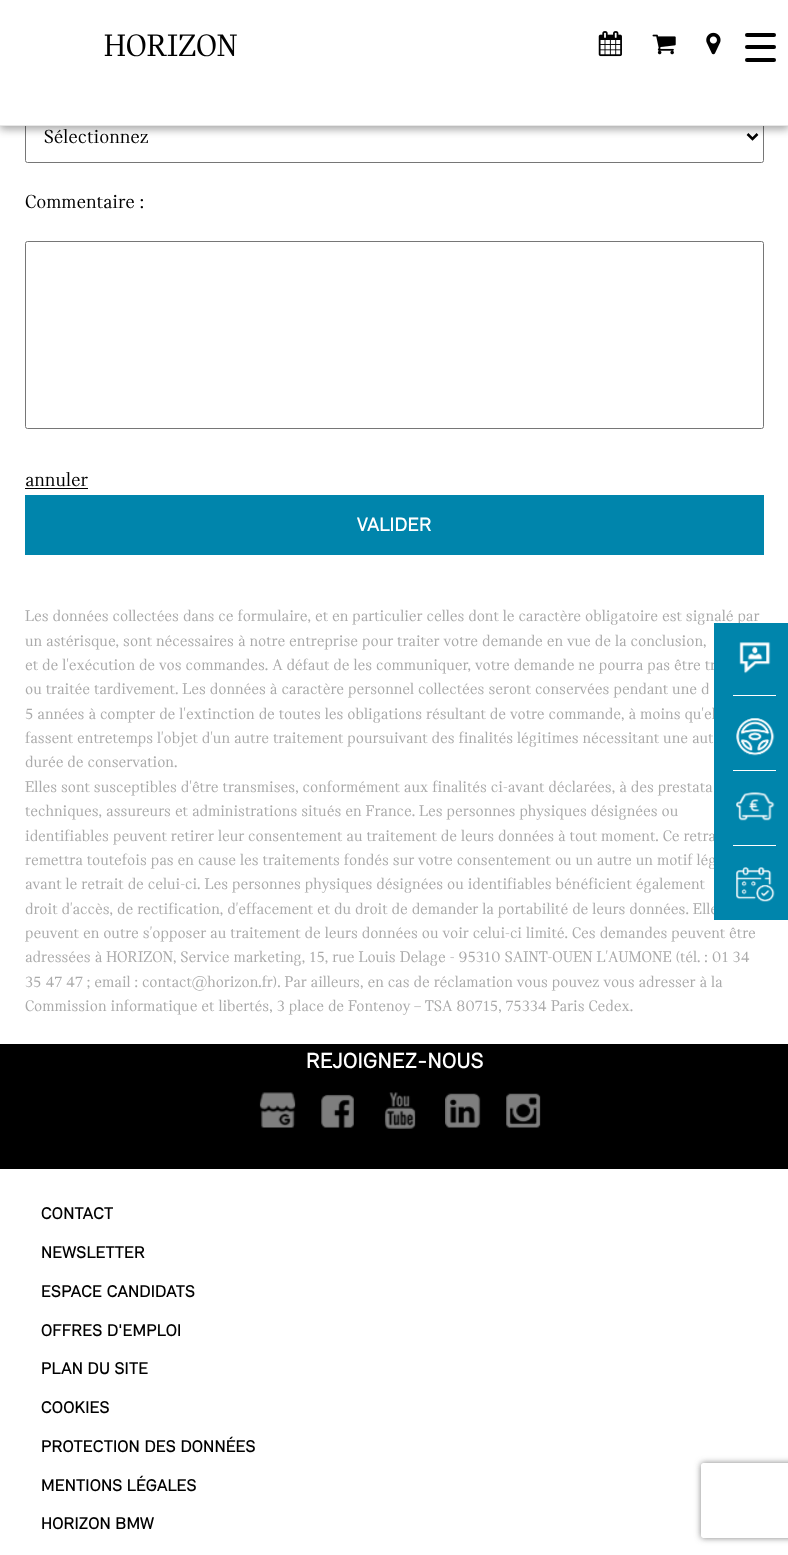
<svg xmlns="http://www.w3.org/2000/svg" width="788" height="1555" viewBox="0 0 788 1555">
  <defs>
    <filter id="blur1" x="-50%" y="-200%" width="200%" height="500%"><feGaussianBlur stdDeviation="4"/></filter>
    <clipPath id="clip1"><path d="M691 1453H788V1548H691ZM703.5 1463H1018.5C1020 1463 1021 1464 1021 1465.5V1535.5C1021 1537 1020 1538 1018.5 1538H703.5C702 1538 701 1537 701 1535.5V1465.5C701 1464 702 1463 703.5 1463Z" clip-rule="evenodd"/></clipPath>
    <filter id="blur2" x="-50%" y="-200%" width="200%" height="500%"><feGaussianBlur stdDeviation="3"/></filter>
  </defs>
  <rect width="100%" height="100%" fill="#ffffff"/>
  <rect x="25.5" y="110.5" width="738" height="52" rx="2" fill="none" stroke="#767676"/>
  <path d="M747.5 134L752.5 139L757.5 134" fill="none" stroke="#000000" stroke-width="2.5"/>
  <rect x="0" y="4" width="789" height="125" fill="#000000" fill-opacity="0.23" filter="url(#blur1)"/>
  <rect x="0" y="4" width="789" height="125" fill="#000000" fill-opacity="0.16" filter="url(#blur1)"/>
  <rect x="0" y="0" width="788" height="125" fill="#ffffff"/>
  <text x="104" y="56" font-family="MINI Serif" font-size="32.5" fill="#000000">HORIZON</text>
  <image x="598" y="31" width="24" height="26" href="img1.png"/>
  <image x="652" y="34" width="24" height="21" href="img2.png"/>
  <image x="706" y="32" width="15" height="23" href="img3.png"/>
  <rect x="0" y="125" width="788" height="1" fill="#e8e8e8"/>
  <text x="44" y="143" font-family="MINI Serif" font-size="20" fill="#000000">Sélectionnez</text>
  <text x="25" y="208" font-family="MINI Serif" font-size="20" fill="#000000">Commentaire :</text>
  <rect x="25.5" y="241.5" width="738" height="187" rx="2" fill="none" stroke="#767676"/>
  <text x="25" y="486" font-family="MINI Serif" font-size="20" fill="#000000">annuler</text>
  <rect x="25" y="488" width="63" height="1" fill="#000000"/>
  <rect x="25" y="495" width="739" height="60" fill="#0085ac"/>
  <text x="357" y="531" font-family="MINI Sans" font-size="20" font-weight="500" fill="#ffffff">VALIDER</text>
  <text x="25" y="621" font-family="MINI Serif" font-size="16.25" fill="#aaaaaa">Les données collectées dans ce formulaire, et en particulier celles dont le caractère obligatoire est signalé par</text>
  <text x="25" y="646" font-family="MINI Serif" font-size="16.25" fill="#aaaaaa">un astérisque, sont nécessaires à notre entreprise pour traiter votre demande en vue de la conclusion,</text>
  <text x="25" y="670" font-family="MINI Serif" font-size="16.25" fill="#aaaaaa">et de l'exécution de vos commandes. A défaut de les communiquer, votre demande ne pourra pas être tr</text>
  <text x="25" y="694" font-family="MINI Serif" font-size="16.25" fill="#aaaaaa">ou traitée tardivement. Les données à caractère personnel collectées seront conservées pendant une d</text>
  <text x="25" y="719" font-family="MINI Serif" font-size="16.25" fill="#aaaaaa">5 années à compter de l'extinction de toutes les obligations résultant de votre commande, à moins qu'el</text>
  <text x="25" y="743" font-family="MINI Serif" font-size="16.25" fill="#aaaaaa">fassent entretemps l'objet d'un autre traitement poursuivant des finalités légitimes nécessitant une aut</text>
  <text x="25" y="767" font-family="MINI Serif" font-size="16.25" fill="#aaaaaa">durée de conservation.</text>
  <text x="25" y="792" font-family="MINI Serif" font-size="16.25" fill="#aaaaaa">Elles sont susceptibles d'être transmises, conformément aux finalités ci-avant déclarées, à des prestata</text>
  <text x="25" y="816" font-family="MINI Serif" font-size="16.25" fill="#aaaaaa">techniques, assureurs et administrations situés en France. Les personnes physiques désignées ou</text>
  <text x="25" y="841" font-family="MINI Serif" font-size="16.25" fill="#aaaaaa">identifiables peuvent retirer leur consentement au traitement de leurs données à tout moment. Ce retra</text>
  <text x="25" y="865" font-family="MINI Serif" font-size="16.25" fill="#aaaaaa">remettra toutefois pas en cause les traitements fondés sur votre consentement ou un autre un motif lég</text>
  <text x="25" y="889" font-family="MINI Serif" font-size="16.25" fill="#aaaaaa">avant le retrait de celui-ci. Les personnes physiques désignées ou identifiables bénéficient également</text>
  <text x="25" y="914" font-family="MINI Serif" font-size="16.25" fill="#aaaaaa">droit d'accès, de rectification, d'effacement et du droit de demander la portabilité de leurs données. Elle</text>
  <text x="25" y="938" font-family="MINI Serif" font-size="16.25" fill="#aaaaaa">peuvent en outre s'opposer au traitement de leurs données ou voir celui-ci limité. Ces demandes peuvent être</text>
  <text x="25" y="962" font-family="MINI Serif" font-size="16.25" fill="#aaaaaa">adressées à HORIZON, Service marketing, 15, rue Louis Delage - 95310 SAINT-OUEN L'AUMONE (tél. : 01 34</text>
  <text x="25" y="987" font-family="MINI Serif" font-size="16.25" fill="#aaaaaa">35 47 47 ; email : contact@horizon.fr). Par ailleurs, en cas de réclamation vous pouvez vous adresser à la</text>
  <text x="25" y="1011" font-family="MINI Serif" font-size="16.25" fill="#aaaaaa">Commission informatique et libertés, 3 place de Fontenoy – TSA 80715, 75334 Paris Cedex.</text>
  <rect x="714" y="623" width="74" height="297" fill="#0085ac"/>
  <image x="739" y="642" width="32" height="32" href="img4.png"/>
  <rect x="733" y="695" width="43" height="1" fill="#ffffff"/>
  <image x="736" y="718" width="39" height="38" href="img5.png"/>
  <rect x="733" y="770" width="43" height="1" fill="#ffffff"/>
  <image x="736" y="792" width="39" height="29" href="img6.png"/>
  <rect x="733" y="845" width="43" height="1" fill="#ffffff"/>
  <image x="736" y="867" width="39" height="35" href="img7.png"/>
  <rect x="0" y="1044" width="788" height="125" fill="#000000"/>
  <text x="306" y="1068" font-family="MINI Sans" font-size="22.5" font-weight="500" fill="#ffffff">REJOIGNEZ-NOUS</text>
  <image x="259" y="1092" width="37" height="36" href="img8.png"/>
  <image x="321" y="1094" width="33" height="34" href="img9.png"/>
  <image x="384" y="1092" width="32" height="37" href="img10.png"/>
  <image x="445" y="1093" width="36" height="35" href="img11.png"/>
  <image x="506" y="1093" width="35" height="35" href="img12.png"/>
  <text x="41" y="1219" font-family="MINI Sans" font-size="17.5" font-weight="500" fill="#000000">CONTACT</text>
  <text x="41" y="1258" font-family="MINI Sans" font-size="17.5" font-weight="500" fill="#000000">NEWSLETTER</text>
  <text x="41" y="1297" font-family="MINI Sans" font-size="17.5" font-weight="500" fill="#000000">ESPACE CANDIDATS</text>
  <text x="41" y="1336" font-family="MINI Sans" font-size="17.5" font-weight="500" fill="#000000">OFFRES D'EMPLOI</text>
  <text x="41" y="1374" font-family="MINI Sans" font-size="17.5" font-weight="500" fill="#000000">PLAN DU SITE</text>
  <text x="41" y="1413" font-family="MINI Sans" font-size="17.5" font-weight="500" fill="#000000">COOKIES</text>
  <text x="41" y="1452" font-family="MINI Sans" font-size="17.5" font-weight="500" fill="#000000">PROTECTION DES DONNÉES</text>
  <text x="41" y="1491" font-family="MINI Sans" font-size="17.5" font-weight="500" fill="#000000">MENTIONS LÉGALES</text>
  <text x="41" y="1529" font-family="MINI Sans" font-size="17.5" font-weight="500" fill="#000000">HORIZON BMW</text>
  <rect x="745" y="33" width="31" height="4" rx="2" fill="#000000"/>
  <rect x="745" y="45" width="31" height="4" rx="2" fill="#000000"/>
  <rect x="745" y="58" width="31" height="4" rx="2" fill="#000000"/>
  <g clip-path="url(#clip1)">
    <rect x="701" y="1463" width="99" height="75" rx="2.5" fill="#808080" filter="url(#blur2)"/>
  </g>
</svg>
